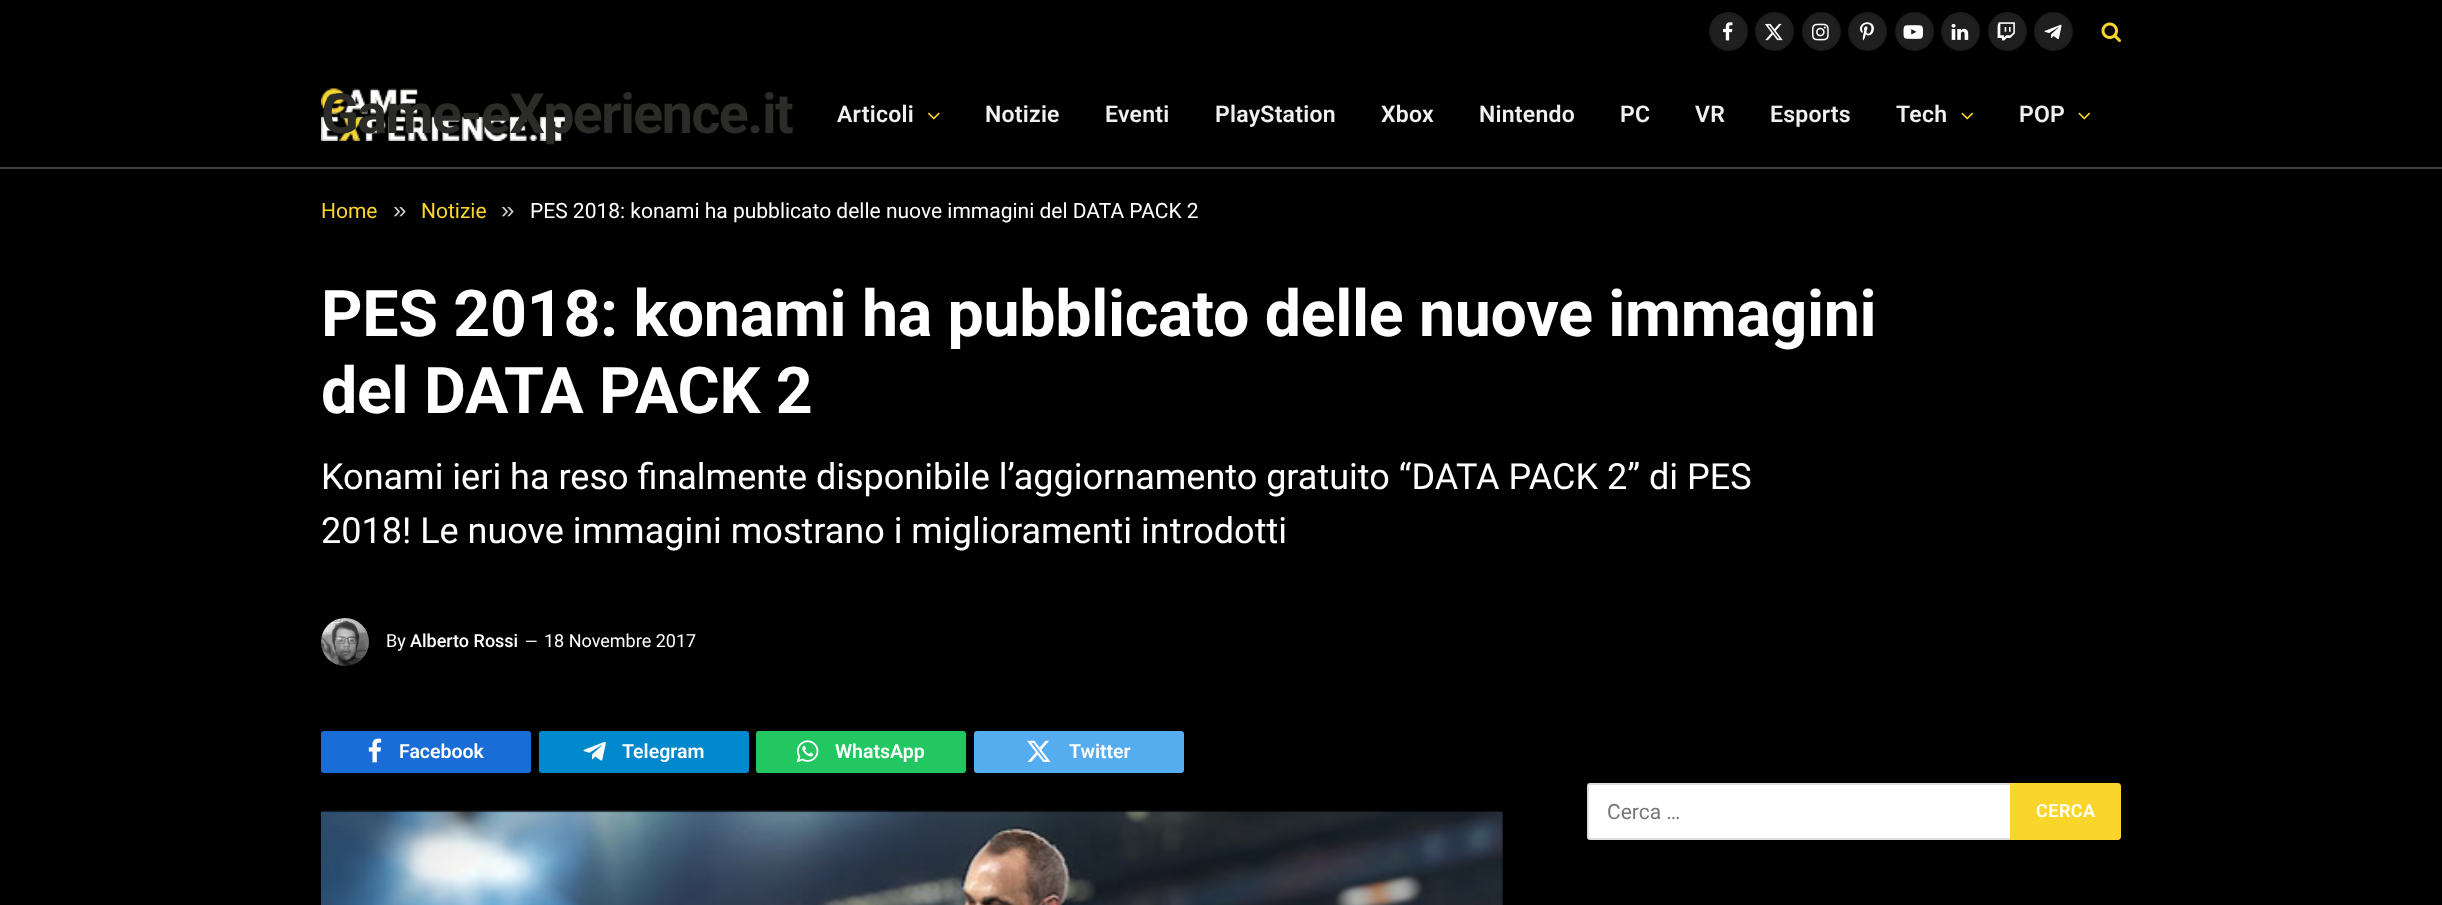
<svg xmlns="http://www.w3.org/2000/svg" width="2442" height="905" viewBox="0 0 2442 905">
  <rect width="100%" height="100%" fill="#000000"/>
  <circle cx="1728.5" cy="31.5" r="19.5" fill="#1f1f1f"/>
  <circle cx="1728.5" cy="31.5" r="18.5" fill="none" stroke="#000000" stroke-opacity="0.09" stroke-width="2"/>
  <image x="1723" y="22" width="10" height="19" href="img1.png"/>
  <circle cx="1774.5" cy="31.5" r="19.5" fill="#1f1f1f"/>
  <circle cx="1774.5" cy="31.5" r="18.5" fill="none" stroke="#000000" stroke-opacity="0.09" stroke-width="2"/>
  <image x="1765" y="23" width="18" height="18" href="img2.png"/>
  <circle cx="1821.5" cy="31.5" r="19.5" fill="#1f1f1f"/>
  <circle cx="1821.5" cy="31.5" r="18.5" fill="none" stroke="#000000" stroke-opacity="0.09" stroke-width="2"/>
  <image x="1812" y="23" width="17" height="18" href="img3.png"/>
  <circle cx="1867.5" cy="31.5" r="19.5" fill="#1f1f1f"/>
  <circle cx="1867.5" cy="31.5" r="18.5" fill="none" stroke="#000000" stroke-opacity="0.09" stroke-width="2"/>
  <image x="1860" y="22" width="14" height="19" href="img4.png"/>
  <circle cx="1914.5" cy="31.5" r="19.5" fill="#1f1f1f"/>
  <circle cx="1914.5" cy="31.5" r="18.5" fill="none" stroke="#000000" stroke-opacity="0.09" stroke-width="2"/>
  <image x="1903" y="25" width="20" height="14" href="img5.png"/>
  <circle cx="1960.5" cy="31.5" r="19.5" fill="#1f1f1f"/>
  <circle cx="1960.5" cy="31.5" r="18.5" fill="none" stroke="#000000" stroke-opacity="0.09" stroke-width="2"/>
  <image x="1951" y="23" width="18" height="17" href="img6.png"/>
  <circle cx="2007.5" cy="31.5" r="19.5" fill="#1f1f1f"/>
  <circle cx="2007.5" cy="31.5" r="18.5" fill="none" stroke="#000000" stroke-opacity="0.09" stroke-width="2"/>
  <image x="1997" y="22" width="18" height="19" href="img7.png"/>
  <circle cx="2053.5" cy="31.5" r="19.5" fill="#1f1f1f"/>
  <circle cx="2053.5" cy="31.5" r="18.5" fill="none" stroke="#000000" stroke-opacity="0.09" stroke-width="2"/>
  <image x="2044" y="24" width="18" height="15" href="img8.png"/>
  <image x="2101" y="22" width="20" height="20" href="img9.png"/>
  <rect x="0" y="167" width="2442" height="2" fill="#3f3f3f"/>
  <image x="321" y="88" width="248" height="53" href="img10.png"/>
  <text x="321" y="133" font-family="Roboto" font-size="55.5" font-weight="bold" letter-spacing="-1.5" fill="#2b2b27">Game-eXperience.it</text>
  <text x="837" y="122" font-family="Roboto" font-size="23" font-weight="600" letter-spacing="0.25" fill="#f0f0f0">Articoli</text>
  <image x="927" y="112" width="13" height="8" href="img11.png"/>
  <text x="985" y="122" font-family="Roboto" font-size="23" font-weight="600" letter-spacing="0.25" fill="#f0f0f0">Notizie</text>
  <text x="1105" y="122" font-family="Roboto" font-size="23" font-weight="600" letter-spacing="0.25" fill="#f0f0f0">Eventi</text>
  <text x="1215" y="122" font-family="Roboto" font-size="23" font-weight="600" letter-spacing="0.25" fill="#f0f0f0">PlayStation</text>
  <text x="1381" y="122" font-family="Roboto" font-size="23" font-weight="600" letter-spacing="0.25" fill="#f0f0f0">Xbox</text>
  <text x="1479" y="122" font-family="Roboto" font-size="23" font-weight="600" letter-spacing="0.25" fill="#f0f0f0">Nintendo</text>
  <text x="1620" y="122" font-family="Roboto" font-size="23" font-weight="600" letter-spacing="0.25" fill="#f0f0f0">PC</text>
  <text x="1695" y="122" font-family="Roboto" font-size="23" font-weight="600" letter-spacing="0.25" fill="#f0f0f0">VR</text>
  <text x="1770" y="122" font-family="Roboto" font-size="23" font-weight="600" letter-spacing="0.25" fill="#f0f0f0">Esports</text>
  <text x="1896" y="122" font-family="Roboto" font-size="23" font-weight="600" letter-spacing="0.25" fill="#f0f0f0">Tech</text>
  <image x="1961" y="112" width="13" height="8" href="img12.png"/>
  <text x="2019" y="122" font-family="Roboto" font-size="23" font-weight="600" letter-spacing="0.25" fill="#f0f0f0">POP</text>
  <image x="2078" y="112" width="13" height="8" href="img12.png"/>
  <text x="321" y="218" font-family="Roboto" font-size="21" fill="#fad62c">Home</text>
  <text x="393" y="218" font-family="Liberation Sans" font-size="24" fill="#cccccc">»</text>
  <text x="421" y="218" font-family="Roboto" font-size="21" fill="#fad62c">Notizie</text>
  <text x="501" y="218" font-family="Liberation Sans" font-size="24" fill="#cccccc">»</text>
  <text x="530" y="218" font-family="Roboto" font-size="21" fill="#ffffff">PES 2018: konami ha pubblicato delle nuove immagini del DATA PACK 2</text>
  <text x="321" y="336" font-family="Roboto" font-size="64.5" font-weight="bold" letter-spacing="-0.32" fill="#ffffff">PES 2018: konami ha pubblicato delle nuove immagini</text>
  <text x="321" y="413" font-family="Roboto" font-size="64.5" font-weight="bold" letter-spacing="-0.32" fill="#ffffff">del DATA PACK 2</text>
  <text x="321" y="489" font-family="Roboto" font-size="36" fill="#ffffff">Konami ieri ha reso finalmente disponibile l’aggiornamento gratuito “DATA PACK 2” di PES</text>
  <text x="321" y="543" font-family="Roboto" font-size="36" fill="#ffffff">2018! Le nuove immagini mostrano i miglioramenti introdotti</text>
  <image x="321" y="618" width="48" height="48" href="img13.png"/>
  <text x="386" y="647" font-family="Roboto" font-size="18" fill="#ffffff">By</text>
  <text x="410" y="647" font-family="Roboto" font-size="18" font-weight="500" fill="#ffffff">Alberto Rossi</text>
  <text x="525" y="647" font-family="Roboto" font-size="16" fill="#ffffff">—</text>
  <text x="544" y="647" font-family="Roboto" font-size="18" fill="#ffffff">18 Novembre 2017</text>
  <rect x="321" y="731" width="210" height="42" rx="3" fill="#1a6dd4"/>
  <image x="368" y="738" width="14" height="25" href="img14.png"/>
  <text x="399" y="758" font-family="Roboto" font-size="19.5" font-weight="600" fill="#ffffff">Facebook</text>
  <rect x="539" y="731" width="210" height="42" rx="3" fill="#0088cc"/>
  <image x="583" y="741" width="23" height="20" href="img15.png"/>
  <text x="622" y="758" font-family="Roboto" font-size="19.5" font-weight="600" fill="#ffffff">Telegram</text>
  <rect x="756" y="731" width="210" height="42" rx="3" fill="#23c761"/>
  <image x="796" y="740" width="23" height="23" href="img16.png"/>
  <text x="835" y="758" font-family="Roboto" font-size="19.5" font-weight="600" fill="#ffffff">WhatsApp</text>
  <rect x="974" y="731" width="210" height="42" rx="3" fill="#55acef"/>
  <image x="1027" y="740" width="24" height="22" href="img17.png"/>
  <text x="1069" y="758" font-family="Roboto" font-size="19.5" font-weight="600" fill="#ffffff">Twitter</text>
  <image x="321" y="810" width="1182" height="95" href="img18.png"/>
  <rect x="1588" y="784" width="424" height="55" rx="2" fill="#ffffff" stroke="#dddddd" stroke-width="2"/>
  <text x="1607" y="819" font-family="Roboto" font-size="21" fill="#777777">Cerca …</text>
  <path d="M2010 783H2118C2119.5 783 2121 784.5 2121 786V837C2121 838.5 2119.5 840 2118 840H2010Z" fill="#fad62c"/>
  <text x="2036" y="817" font-family="Roboto" font-size="18" font-weight="600" letter-spacing="0.5" fill="#ffffff">CERCA</text>
</svg>
